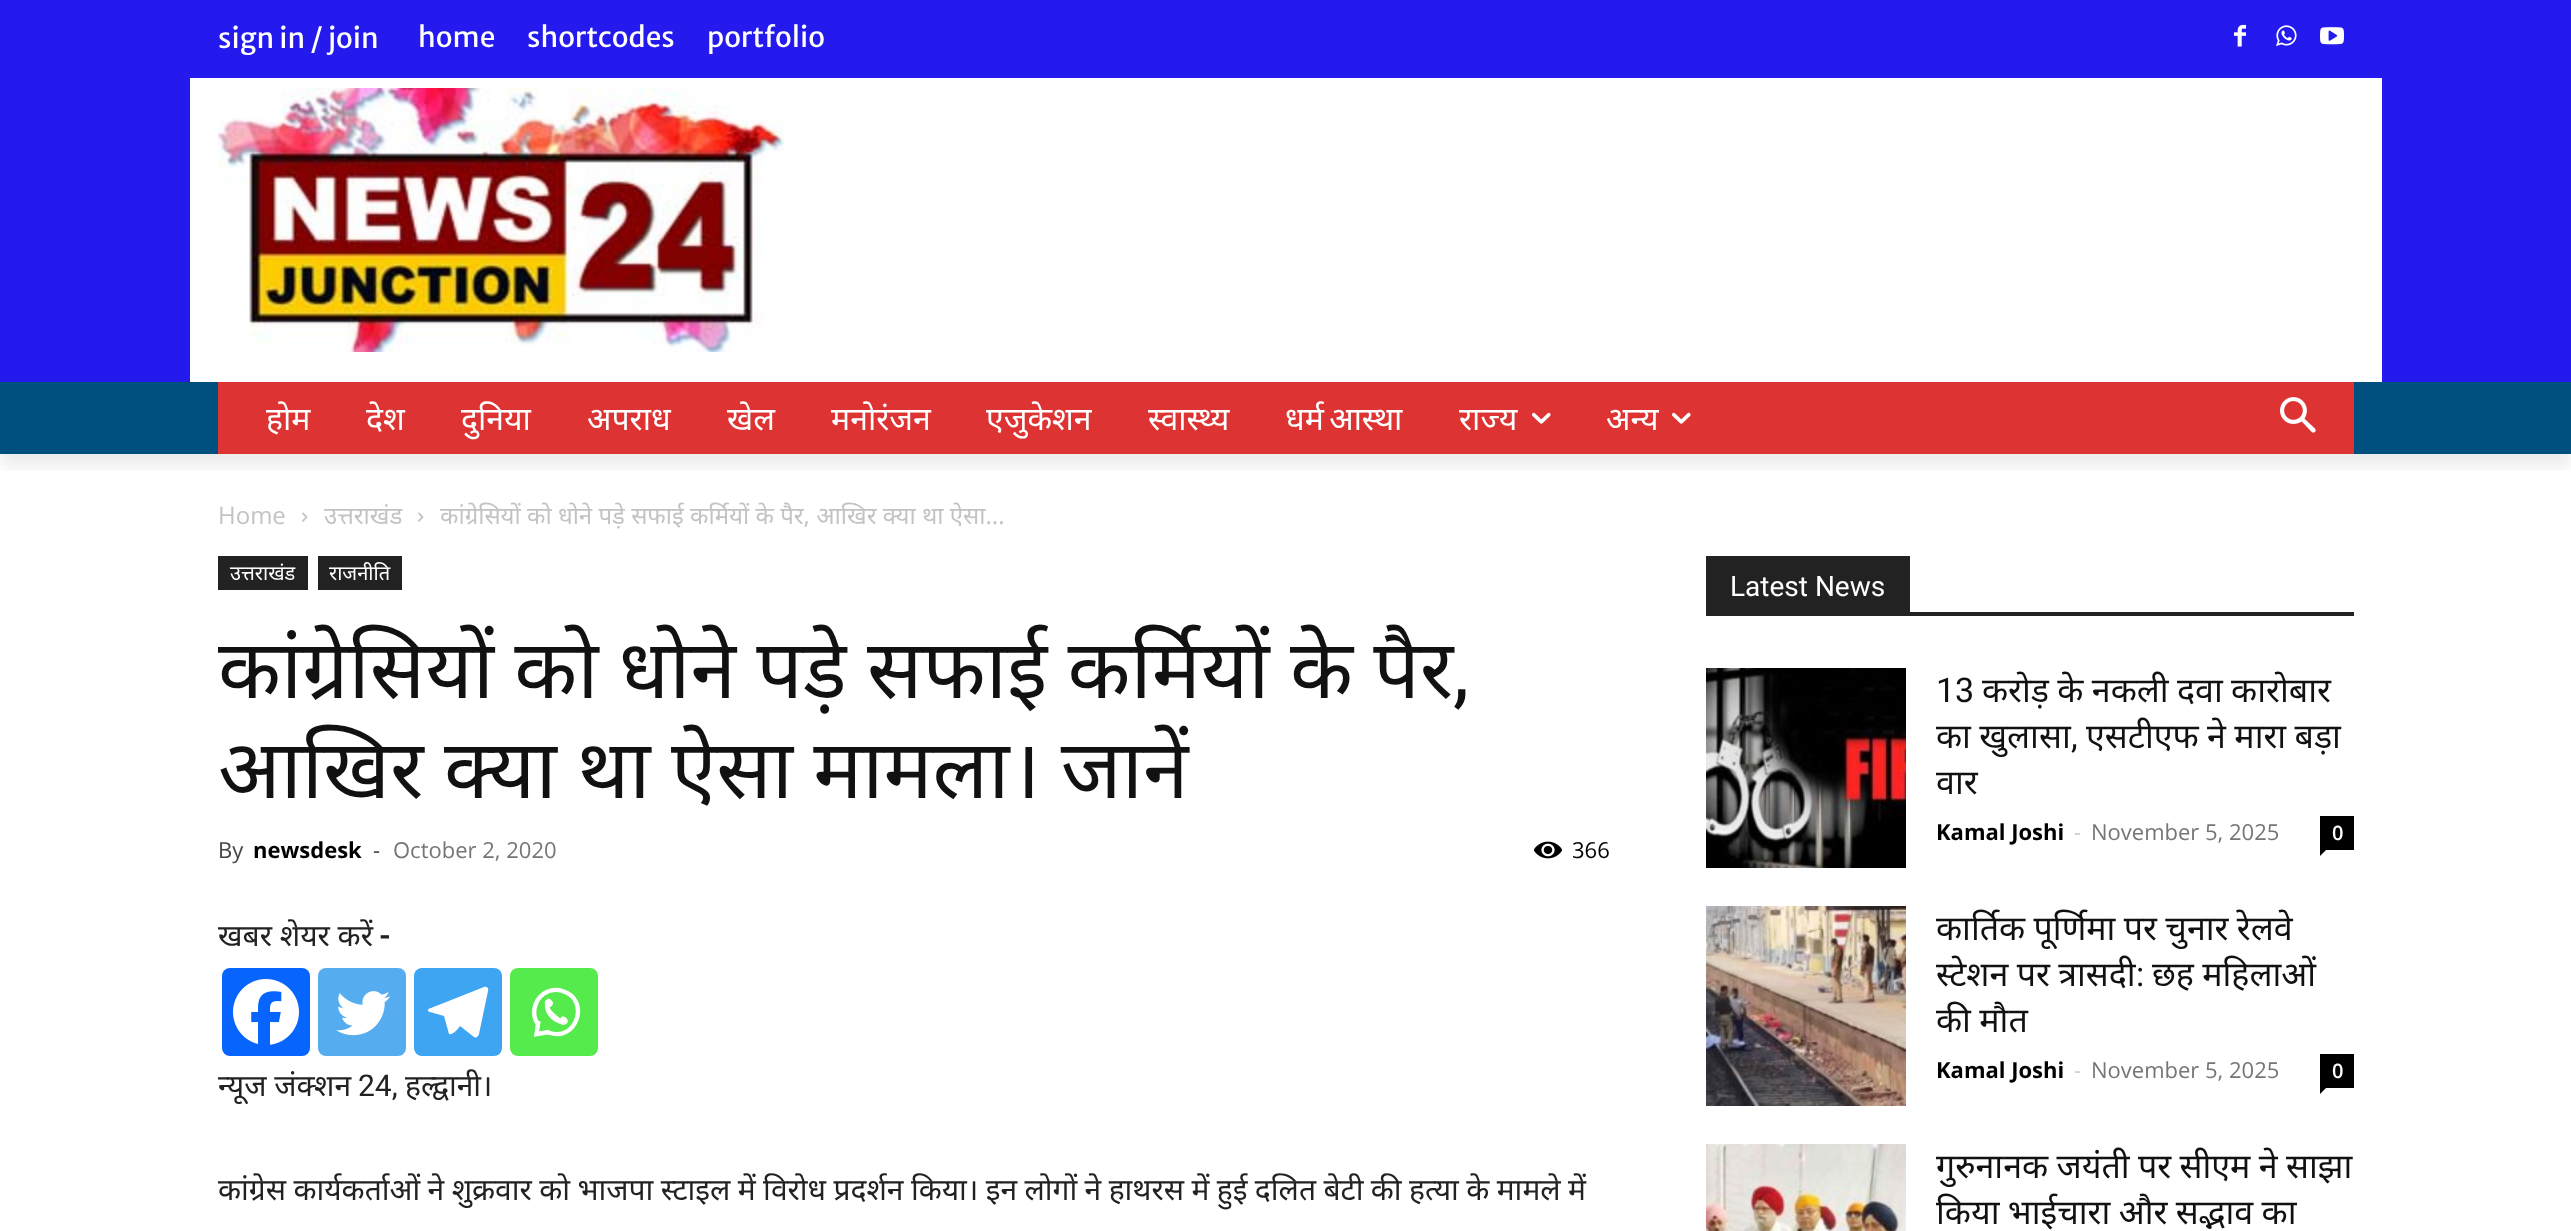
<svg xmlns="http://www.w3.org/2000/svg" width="2571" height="1231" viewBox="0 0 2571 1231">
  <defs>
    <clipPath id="clip1"><rect x="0" y="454" width="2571" height="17"/></clipPath>
    <filter id="blur1" x="-50%" y="-200%" width="200%" height="500%"><feGaussianBlur stdDeviation="8"/></filter>
  </defs>
  <rect width="100%" height="100%" fill="#ffffff"/>
  <rect x="0" y="0" width="2571" height="382" fill="#241aed"/>
  <text x="218" y="48" font-family="Merriweather Sans" font-size="28" fill="#ffffff">sign in / join</text>
  <text x="418" y="47" font-family="Merriweather Sans" font-size="28" fill="#ffffff">home</text>
  <text x="527" y="47" font-family="Merriweather Sans" font-size="28" fill="#ffffff">shortcodes</text>
  <text x="707" y="47" font-family="Merriweather Sans" font-size="28" fill="#ffffff">portfolio</text>
  <image x="2234" y="24" width="12" height="23" href="img1.png"/>
  <image x="2276" y="25" width="21" height="21" href="img2.png"/>
  <image x="2320" y="27" width="24" height="18" href="img3.png"/>
  <rect x="190" y="78" width="2192" height="304" fill="#ffffff"/>
  <image x="218" y="88" width="566" height="264" href="img4.png"/>
  <rect x="0" y="382" width="2571" height="72" fill="#00507f"/>
  <rect x="218" y="382" width="2136" height="72" fill="#dd3333"/>
  <g clip-path="url(#clip1)">
    <rect x="0" y="394" width="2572" height="72" fill="#000000" fill-opacity="0.08" filter="url(#blur1)"/>
  </g>
  <text x="266" y="430" font-family="Noto Sans" font-size="32" fill="#ffffff">होम</text>
  <text x="366" y="430" font-family="Noto Sans" font-size="32" fill="#ffffff">देश</text>
  <text x="461" y="430" font-family="Noto Sans" font-size="32" fill="#ffffff">दुनिया</text>
  <text x="587" y="430" font-family="Noto Sans" font-size="32" fill="#ffffff">अपराध</text>
  <text x="727" y="430" font-family="Noto Sans" font-size="32" fill="#ffffff">खेल</text>
  <text x="831" y="430" font-family="Noto Sans" font-size="32" fill="#ffffff">मनोरंजन</text>
  <text x="986" y="430" font-family="Noto Sans" font-size="32" fill="#ffffff">एजुकेशन</text>
  <text x="1148" y="430" font-family="Noto Sans" font-size="32" fill="#ffffff">स्वास्थ्य</text>
  <text x="1285" y="430" word-spacing="-3" font-family="Noto Sans" font-size="32" fill="#ffffff">धर्म आस्था</text>
  <text x="1459" y="430" font-family="Noto Sans" font-size="32" fill="#ffffff">राज्य</text>
  <image x="1532" y="412" width="19" height="12" href="img5.png"/>
  <text x="1606" y="430" font-family="Noto Sans" font-size="32" fill="#ffffff">अन्य</text>
  <image x="1672" y="412" width="19" height="12" href="img5.png"/>
  <image x="2280" y="397" width="36" height="36" href="img6.png"/>
  <text x="218" y="524" font-family="Open Sans" font-size="24" fill="#c3c3c3">Home</text>
  <image x="302" y="512" width="6" height="10" href="img7.png"/>
  <text x="324" y="524" font-family="Noto Sans" font-size="24" fill="#c3c3c3">उत्तराखंड</text>
  <image x="418" y="512" width="6" height="10" href="img7.png"/>
  <text x="440" y="524" font-family="Noto Sans" font-size="24" fill="#c3c3c3">कांग्रेसियों को धोने पड़े सफाई कर्मियों के पैर, आखिर क्या था ऐसा...</text>
  <rect x="218" y="556" width="90" height="34" fill="#222222"/>
  <text x="230" y="580" font-family="Noto Sans" font-size="20" fill="#ffffff">उत्तराखंड</text>
  <rect x="318" y="556" width="84" height="34" fill="#222222"/>
  <text x="329" y="580" font-family="Noto Sans" font-size="20" fill="#ffffff">राजनीति</text>
  <text x="218" y="698" word-spacing="-1" font-family="Noto Sans" font-size="82" fill="#111111">कांग्रेसियों को धोने पड़े सफाई कर्मियों के पैर</text>
  <text x="1453" y="698" font-family="Roboto" font-size="82" fill="#111111">,</text>
  <text x="218" y="798" word-spacing="-1" font-family="Noto Sans" font-size="82" fill="#111111">आखिर क्या था ऐसा मामला। जानें</text>
  <text x="218" y="858" font-family="Open Sans" font-size="22" fill="#444444">By</text>
  <text x="253" y="858" font-family="Open Sans" font-size="22" font-weight="bold" fill="#000000">newsdesk</text>
  <text x="373" y="858" font-family="Open Sans" font-size="22" fill="#444444">-</text>
  <text x="393" y="858" font-family="Open Sans" font-size="22" fill="#767676">October 2, 2020</text>
  <image x="1534" y="841" width="28" height="18" href="img8.png"/>
  <text x="1572" y="858" font-family="Open Sans" font-size="22" fill="#000000">366</text>
  <text x="218" y="946" font-family="Noto Sans" font-size="30" fill="#222222">खबर शेयर करें</text>
  <text x="379" y="946" font-family="Roboto" font-size="30" font-weight="bold" fill="#222222">-</text>
  <rect x="222" y="968" width="88" height="88" rx="8" fill="#0765fe"/>
  <image x="233" y="979" width="66" height="66" href="img9.png"/>
  <rect x="318" y="968" width="88" height="88" rx="8" fill="#55acee"/>
  <image x="336" y="991" width="55" height="45" href="img10.png"/>
  <rect x="414" y="968" width="88" height="88" rx="8" fill="#3da5f1"/>
  <path d="M484 987L431 1008C427 1009 427 1011 430 1012L444 1016L449 1034C452 1036 459 1028 460 1026L474 1037C476 1038 478 1037 479 1034L488 991C489 988 487 986 484 987Z" fill="#ffffff"/>
  <rect x="510" y="968" width="88" height="88" rx="8" fill="#55eb4c"/>
  <path d="M548.5 1032.5C576.5 1043 591 999.5 562.5 991C556.5 989 549.5 990 544 993.5C534 1000.5 531 1014.5 538 1024.5M538.5 1021L536.5 1034L549.5 1032" fill="none" stroke="#ffffff" stroke-width="4.4"/>
  <path d="M545 1001C543.5 1012.5 549.5 1021 563 1025C574 1023 563 1012 560.5 1018.5C554.5 1014 551 1010.5 549.5 1007.5C558.5 1003 547.5 996.5 547.5 999" fill="#ffffff"/>
  <text x="218" y="1096" font-family="Noto Sans" font-size="30" fill="#222222">न्यूज जंक्शन</text>
  <text x="358" y="1096" font-family="Roboto" font-size="30" fill="#222222">24,</text>
  <text x="405" y="1096" font-family="Noto Sans" font-size="30" fill="#222222">हल्द्वानी।</text>
  <text x="218" y="1200" word-spacing="-0.4" font-family="Noto Sans" font-size="30" fill="#222222">कांग्रेस कार्यकर्ताओं ने शुक्रवार को भाजपा स्टाइल में विरोध प्रदर्शन किया। इन लोगों ने हाथरस में हुई दलित बेटी की हत्या के मामले में</text>
  <rect x="1706" y="612" width="648" height="4" fill="#222222"/>
  <rect x="1706" y="556" width="204" height="56" fill="#222222"/>
  <text x="1730" y="596" font-family="Roboto" font-size="28" fill="#ffffff">Latest News</text>
  <image x="1706" y="668" width="200" height="200" href="img11.png"/>
  <text x="1936" y="702" font-family="Roboto" font-size="34" fill="#111111">13</text>
  <text x="1982" y="702" word-spacing="-0.5" font-family="Noto Sans" font-size="34" fill="#111111">करोड़ के नकली दवा कारोबार</text>
  <text x="1936" y="748" word-spacing="-0.5" font-family="Noto Sans" font-size="34" fill="#111111">का खुलासा</text>
  <text x="2071" y="748" font-family="Roboto" font-size="34" fill="#111111">,</text>
  <text x="2086" y="748" word-spacing="-0.5" font-family="Noto Sans" font-size="34" fill="#111111">एसटीएफ ने मारा बड़ा</text>
  <text x="1936" y="794" font-family="Noto Sans" font-size="34" fill="#111111">वार</text>
  <text x="1936" y="840" font-family="Open Sans" font-size="22" font-weight="bold" fill="#000000">Kamal Joshi</text>
  <text x="2074" y="840" font-family="Open Sans" font-size="22" fill="#cccccc">-</text>
  <text x="2091" y="840" font-family="Open Sans" font-size="22" fill="#767676">November 5, 2025</text>
  <rect x="2320" y="816" width="34" height="34" fill="#000000"/>
  <text x="2332" y="840" font-family="Open Sans" font-size="20" font-weight="600" fill="#ffffff">0</text>
  <path d="M2320 850H2326L2320 856Z" fill="#000000"/>
  <image x="1706" y="906" width="200" height="200" href="img12.png"/>
  <text x="1936" y="940" word-spacing="-0.5" font-family="Noto Sans" font-size="34" fill="#111111">कार्तिक पूर्णिमा पर चुनार रेलवे</text>
  <text x="1936" y="986" word-spacing="-0.5" font-family="Noto Sans" font-size="34" fill="#111111">स्टेशन पर त्रासदी</text>
  <text x="2136" y="986" font-family="Roboto" font-size="34" fill="#111111">:</text>
  <text x="2152" y="986" word-spacing="-0.5" font-family="Noto Sans" font-size="34" fill="#111111">छह महिलाओं</text>
  <text x="1936" y="1032" word-spacing="-0.5" font-family="Noto Sans" font-size="34" fill="#111111">की मौत</text>
  <text x="1936" y="1078" font-family="Open Sans" font-size="22" font-weight="bold" fill="#000000">Kamal Joshi</text>
  <text x="2074" y="1078" font-family="Open Sans" font-size="22" fill="#cccccc">-</text>
  <text x="2091" y="1078" font-family="Open Sans" font-size="22" fill="#767676">November 5, 2025</text>
  <rect x="2320" y="1054" width="34" height="34" fill="#000000"/>
  <text x="2332" y="1078" font-family="Open Sans" font-size="20" font-weight="600" fill="#ffffff">0</text>
  <path d="M2320 1088H2326L2320 1094Z" fill="#000000"/>
  <image x="1706" y="1144" width="200" height="87" href="img13.png"/>
  <text x="1936" y="1178" word-spacing="-0.5" font-family="Noto Sans" font-size="34" fill="#111111">गुरुनानक जयंती पर सीएम ने साझा</text>
  <text x="1936" y="1224" word-spacing="-0.5" font-family="Noto Sans" font-size="34" fill="#111111">किया भाईचारा और सद्भाव का</text>
</svg>
